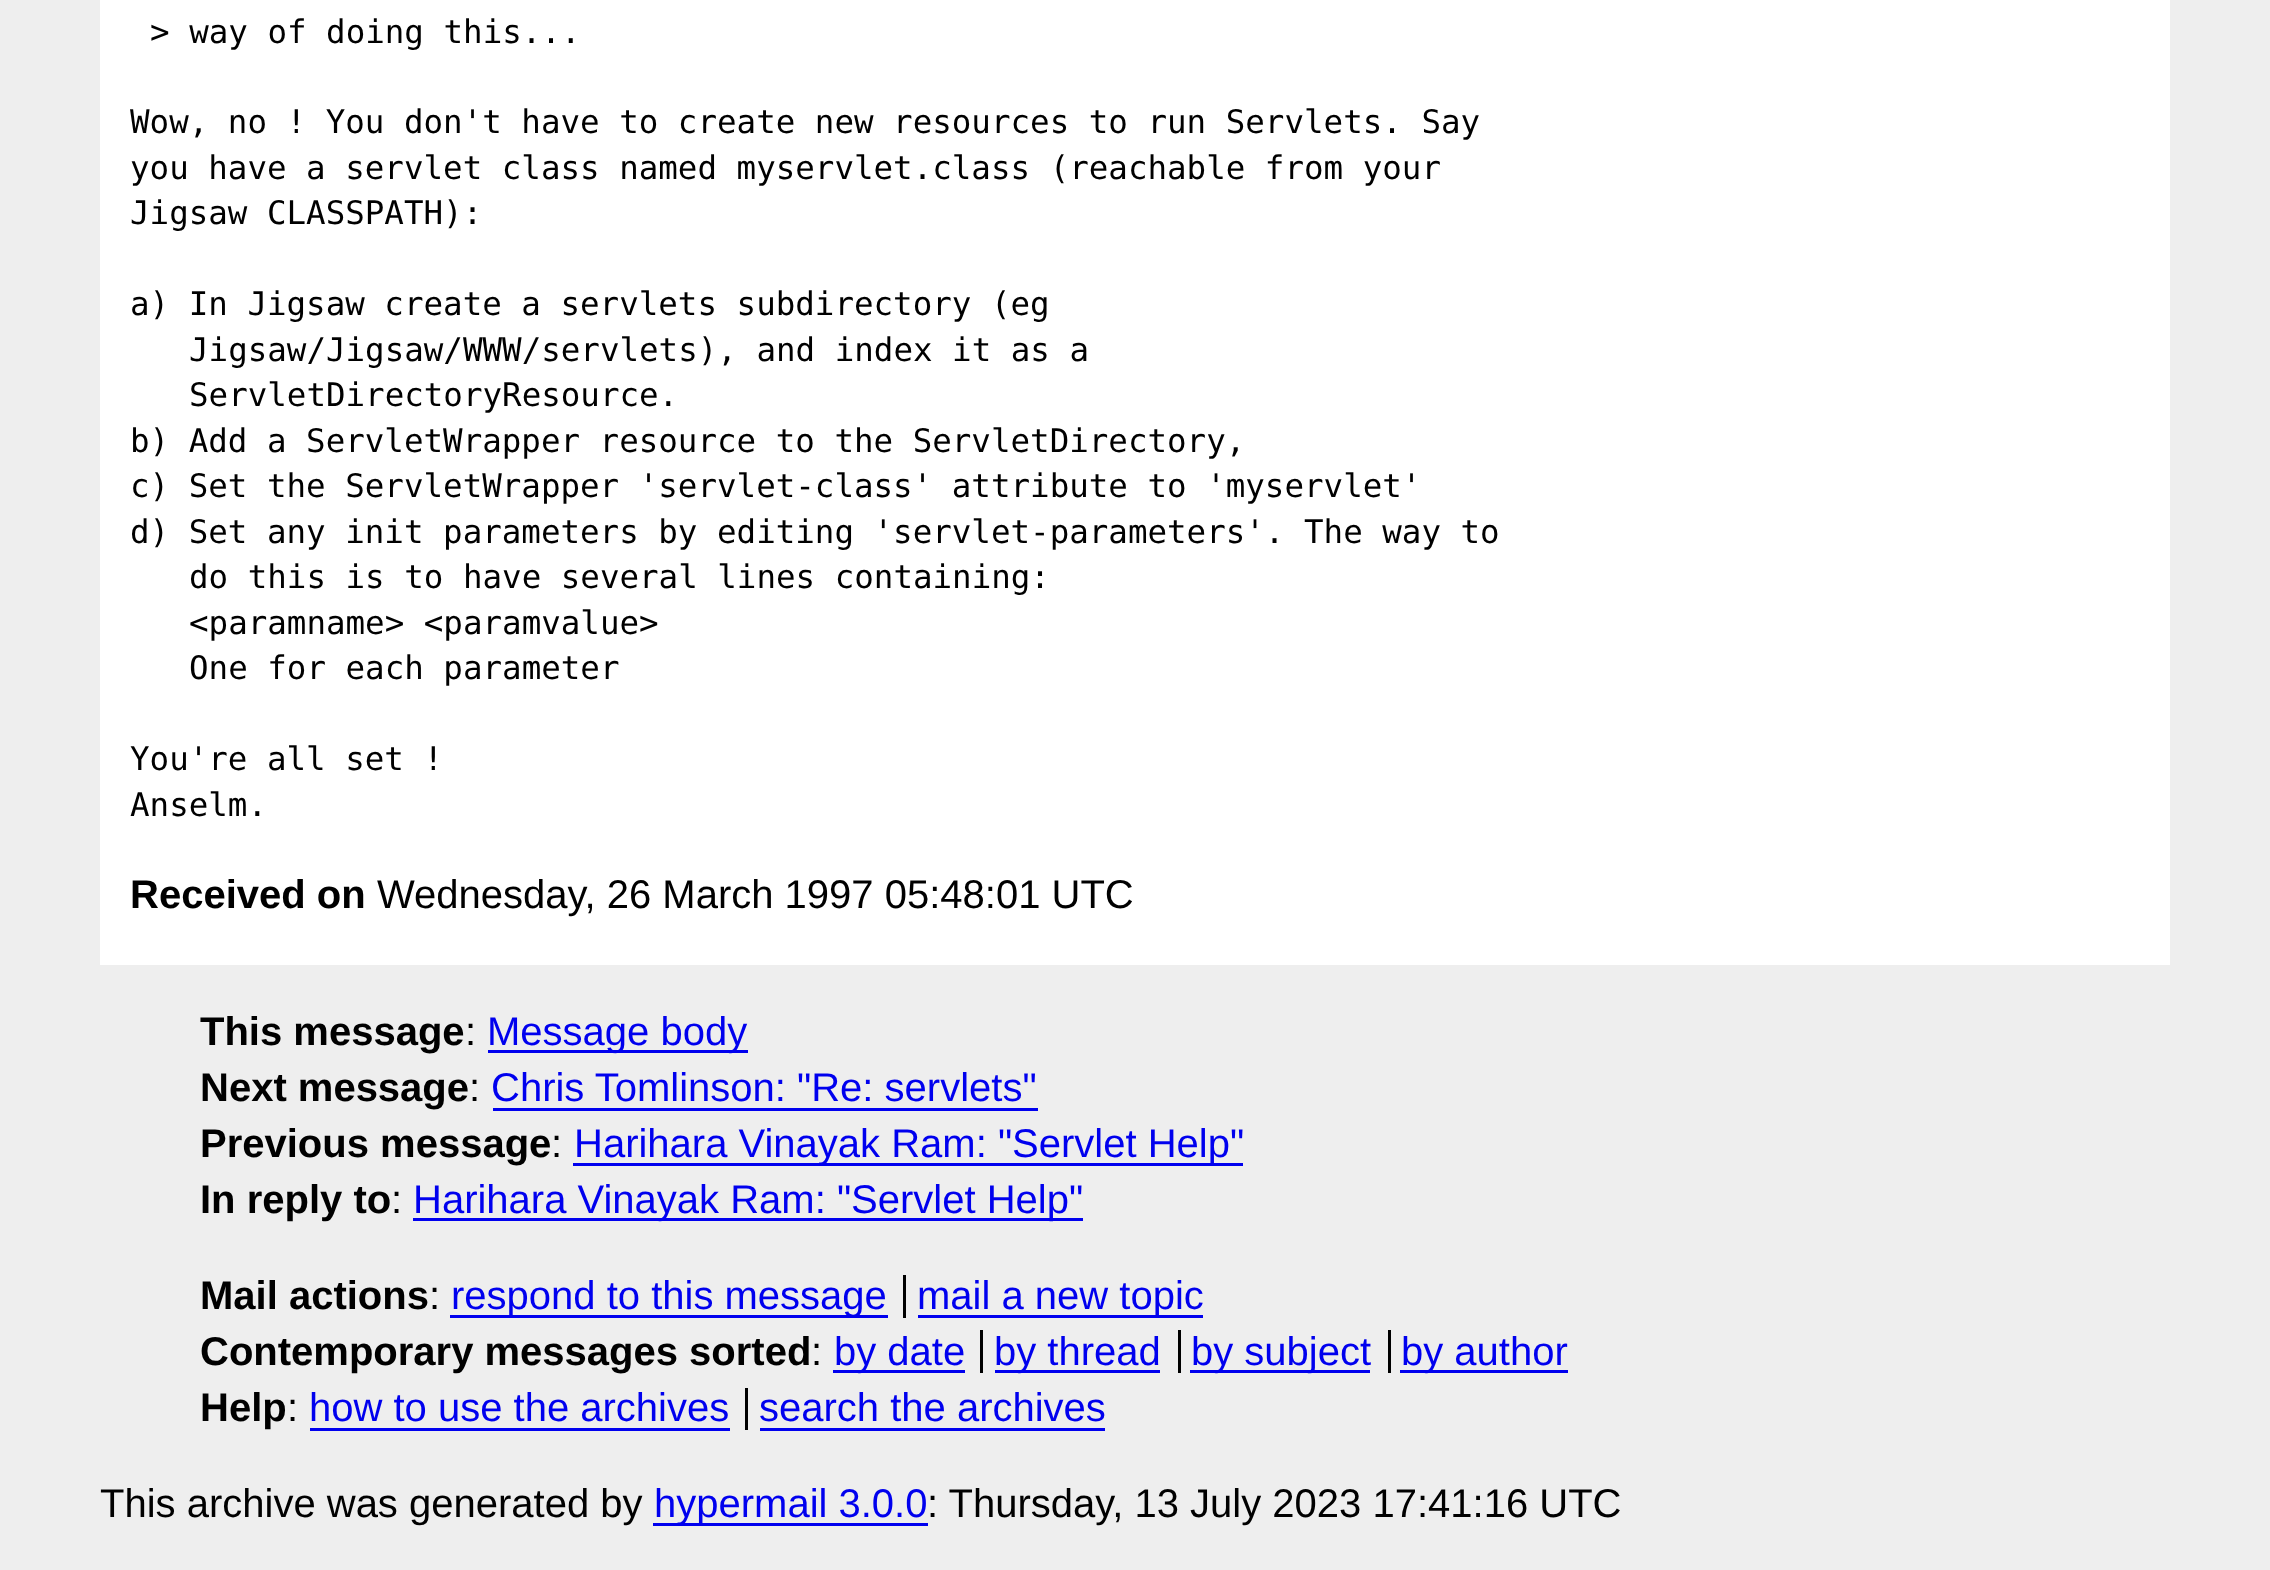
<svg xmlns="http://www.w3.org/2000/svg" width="2270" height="1570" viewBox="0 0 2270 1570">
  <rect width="100%" height="100%" fill="#eeeeee"/>
  <rect x="100" y="0" width="2070" height="965" fill="#ffffff"/>
  <text x="150" y="43" font-family="DejaVu Sans Mono" font-size="32.5" fill="#000000">&gt; way of doing this...</text>
  <text x="130" y="133" font-family="DejaVu Sans Mono" font-size="32.5" fill="#000000">Wow, no ! You don't have to create new resources to run Servlets. Say</text>
  <text x="130" y="179" font-family="DejaVu Sans Mono" font-size="32.5" fill="#000000">you have a servlet class named myservlet.class (reachable from your</text>
  <text x="130" y="224" font-family="DejaVu Sans Mono" font-size="32.5" fill="#000000">Jigsaw CLASSPATH):</text>
  <text x="130" y="315" font-family="DejaVu Sans Mono" font-size="32.5" fill="#000000">a) In Jigsaw create a servlets subdirectory (eg</text>
  <text x="189" y="361" font-family="DejaVu Sans Mono" font-size="32.5" fill="#000000">Jigsaw/Jigsaw/WWW/servlets), and index it as a</text>
  <text x="189" y="406" font-family="DejaVu Sans Mono" font-size="32.5" fill="#000000">ServletDirectoryResource.</text>
  <text x="130" y="452" font-family="DejaVu Sans Mono" font-size="32.5" fill="#000000">b) Add a ServletWrapper resource to the ServletDirectory,</text>
  <text x="130" y="497" font-family="DejaVu Sans Mono" font-size="32.5" fill="#000000">c) Set the ServletWrapper 'servlet-class' attribute to 'myservlet'</text>
  <text x="130" y="543" font-family="DejaVu Sans Mono" font-size="32.5" fill="#000000">d) Set any init parameters by editing 'servlet-parameters'. The way to</text>
  <text x="189" y="588" font-family="DejaVu Sans Mono" font-size="32.5" fill="#000000">do this is to have several lines containing:</text>
  <text x="189" y="634" font-family="DejaVu Sans Mono" font-size="32.5" fill="#000000">&lt;paramname&gt; &lt;paramvalue&gt;</text>
  <text x="189" y="679" font-family="DejaVu Sans Mono" font-size="32.5" fill="#000000">One for each parameter</text>
  <text x="130" y="770" font-family="DejaVu Sans Mono" font-size="32.5" fill="#000000">You're all set !</text>
  <text x="130" y="816" font-family="DejaVu Sans Mono" font-size="32.5" fill="#000000">Anselm.</text>
  <text x="130" y="908" font-family="Liberation Sans" font-size="40" font-weight="bold" fill="#000000">Received on</text>
  <text x="377" y="908" font-family="Liberation Sans" font-size="40" fill="#000000">Wednesday, 26 March 1997 05:48:01 UTC</text>
  <text x="200" y="1045" font-family="Liberation Sans" font-size="40" font-weight="bold" fill="#000000">This message</text>
  <text x="465" y="1045" font-family="Liberation Sans" font-size="40" fill="#000000">:</text>
  <rect x="488" y="1050" width="260" height="3" fill="#0000ee"/>
  <text x="487" y="1045" font-family="Liberation Sans" font-size="40" fill="#0000ee">Message body</text>
  <text x="200" y="1101" font-family="Liberation Sans" font-size="40" font-weight="bold" fill="#000000">Next message</text>
  <text x="469" y="1101" font-family="Liberation Sans" font-size="40" fill="#000000">:</text>
  <text x="491" y="1101" font-family="Liberation Sans" font-size="40" fill="#0000ee">Chris Tomlinson: "Re: servlets"</text>
  <rect x="493" y="1108" width="545" height="3" fill="#0000ee"/>
  <text x="200" y="1157" font-family="Liberation Sans" font-size="40" font-weight="bold" fill="#000000">Previous message</text>
  <text x="551" y="1157" font-family="Liberation Sans" font-size="40" fill="#000000">:</text>
  <rect x="573" y="1163" width="670" height="3" fill="#0000ee"/>
  <text x="574" y="1157" font-family="Liberation Sans" font-size="40" fill="#0000ee">Harihara Vinayak Ram: "Servlet Help"</text>
  <text x="200" y="1213" font-family="Liberation Sans" font-size="40" font-weight="bold" fill="#000000">In reply to</text>
  <text x="391" y="1213" font-family="Liberation Sans" font-size="40" fill="#000000">:</text>
  <rect x="413" y="1218" width="670" height="3" fill="#0000ee"/>
  <text x="413" y="1213" font-family="Liberation Sans" font-size="40" fill="#0000ee">Harihara Vinayak Ram: "Servlet Help"</text>
  <text x="200" y="1309" font-family="Liberation Sans" font-size="40" font-weight="bold" fill="#000000">Mail actions</text>
  <text x="429" y="1309" font-family="Liberation Sans" font-size="40" fill="#000000">:</text>
  <rect x="450" y="1315" width="438" height="3" fill="#0000ee"/>
  <text x="451" y="1309" font-family="Liberation Sans" font-size="40" fill="#0000ee">respond to this message</text>
  <rect x="918" y="1315" width="285" height="3" fill="#0000ee"/>
  <text x="917" y="1309" font-family="Liberation Sans" font-size="40" fill="#0000ee">mail a new topic</text>
  <rect x="903" y="1275" width="3" height="43" fill="#000000"/>
  <text x="200" y="1365" font-family="Liberation Sans" font-size="40" font-weight="bold" fill="#000000">Contemporary messages sorted</text>
  <text x="811" y="1365" font-family="Liberation Sans" font-size="40" fill="#000000">:</text>
  <rect x="833" y="1370" width="132" height="3" fill="#0000ee"/>
  <text x="834" y="1365" font-family="Liberation Sans" font-size="40" fill="#0000ee">by date</text>
  <rect x="995" y="1370" width="165" height="3" fill="#0000ee"/>
  <text x="994" y="1365" font-family="Liberation Sans" font-size="40" fill="#0000ee">by thread</text>
  <rect x="980" y="1330" width="3" height="43" fill="#000000"/>
  <rect x="1190" y="1370" width="180" height="3" fill="#0000ee"/>
  <text x="1191" y="1365" font-family="Liberation Sans" font-size="40" fill="#0000ee">by subject</text>
  <rect x="1178" y="1330" width="3" height="43" fill="#000000"/>
  <rect x="1400" y="1370" width="168" height="3" fill="#0000ee"/>
  <text x="1401" y="1365" font-family="Liberation Sans" font-size="40" fill="#0000ee">by author</text>
  <rect x="1388" y="1330" width="3" height="43" fill="#000000"/>
  <text x="200" y="1421" font-family="Liberation Sans" font-size="40" font-weight="bold" fill="#000000">Help</text>
  <text x="287" y="1421" font-family="Liberation Sans" font-size="40" fill="#000000">:</text>
  <text x="309" y="1421" font-family="Liberation Sans" font-size="40" fill="#0000ee">how to use the archives</text>
  <rect x="310" y="1428" width="420" height="3" fill="#0000ee"/>
  <text x="759" y="1421" font-family="Liberation Sans" font-size="40" fill="#0000ee">search the archives</text>
  <rect x="745" y="1388" width="3" height="42" fill="#000000"/>
  <rect x="760" y="1428" width="345" height="3" fill="#0000ee"/>
  <text x="100" y="1517" font-family="Liberation Sans" font-size="40" fill="#000000">This archive was generated by</text>
  <rect x="653" y="1523" width="275" height="3" fill="#0000ee"/>
  <text x="654" y="1517" font-family="Liberation Sans" font-size="40" fill="#0000ee">hypermail 3.0.0</text>
  <text x="927" y="1517" font-family="Liberation Sans" font-size="40" fill="#000000">: Thursday, 13 July 2023 17:41:16 UTC</text>
</svg>
